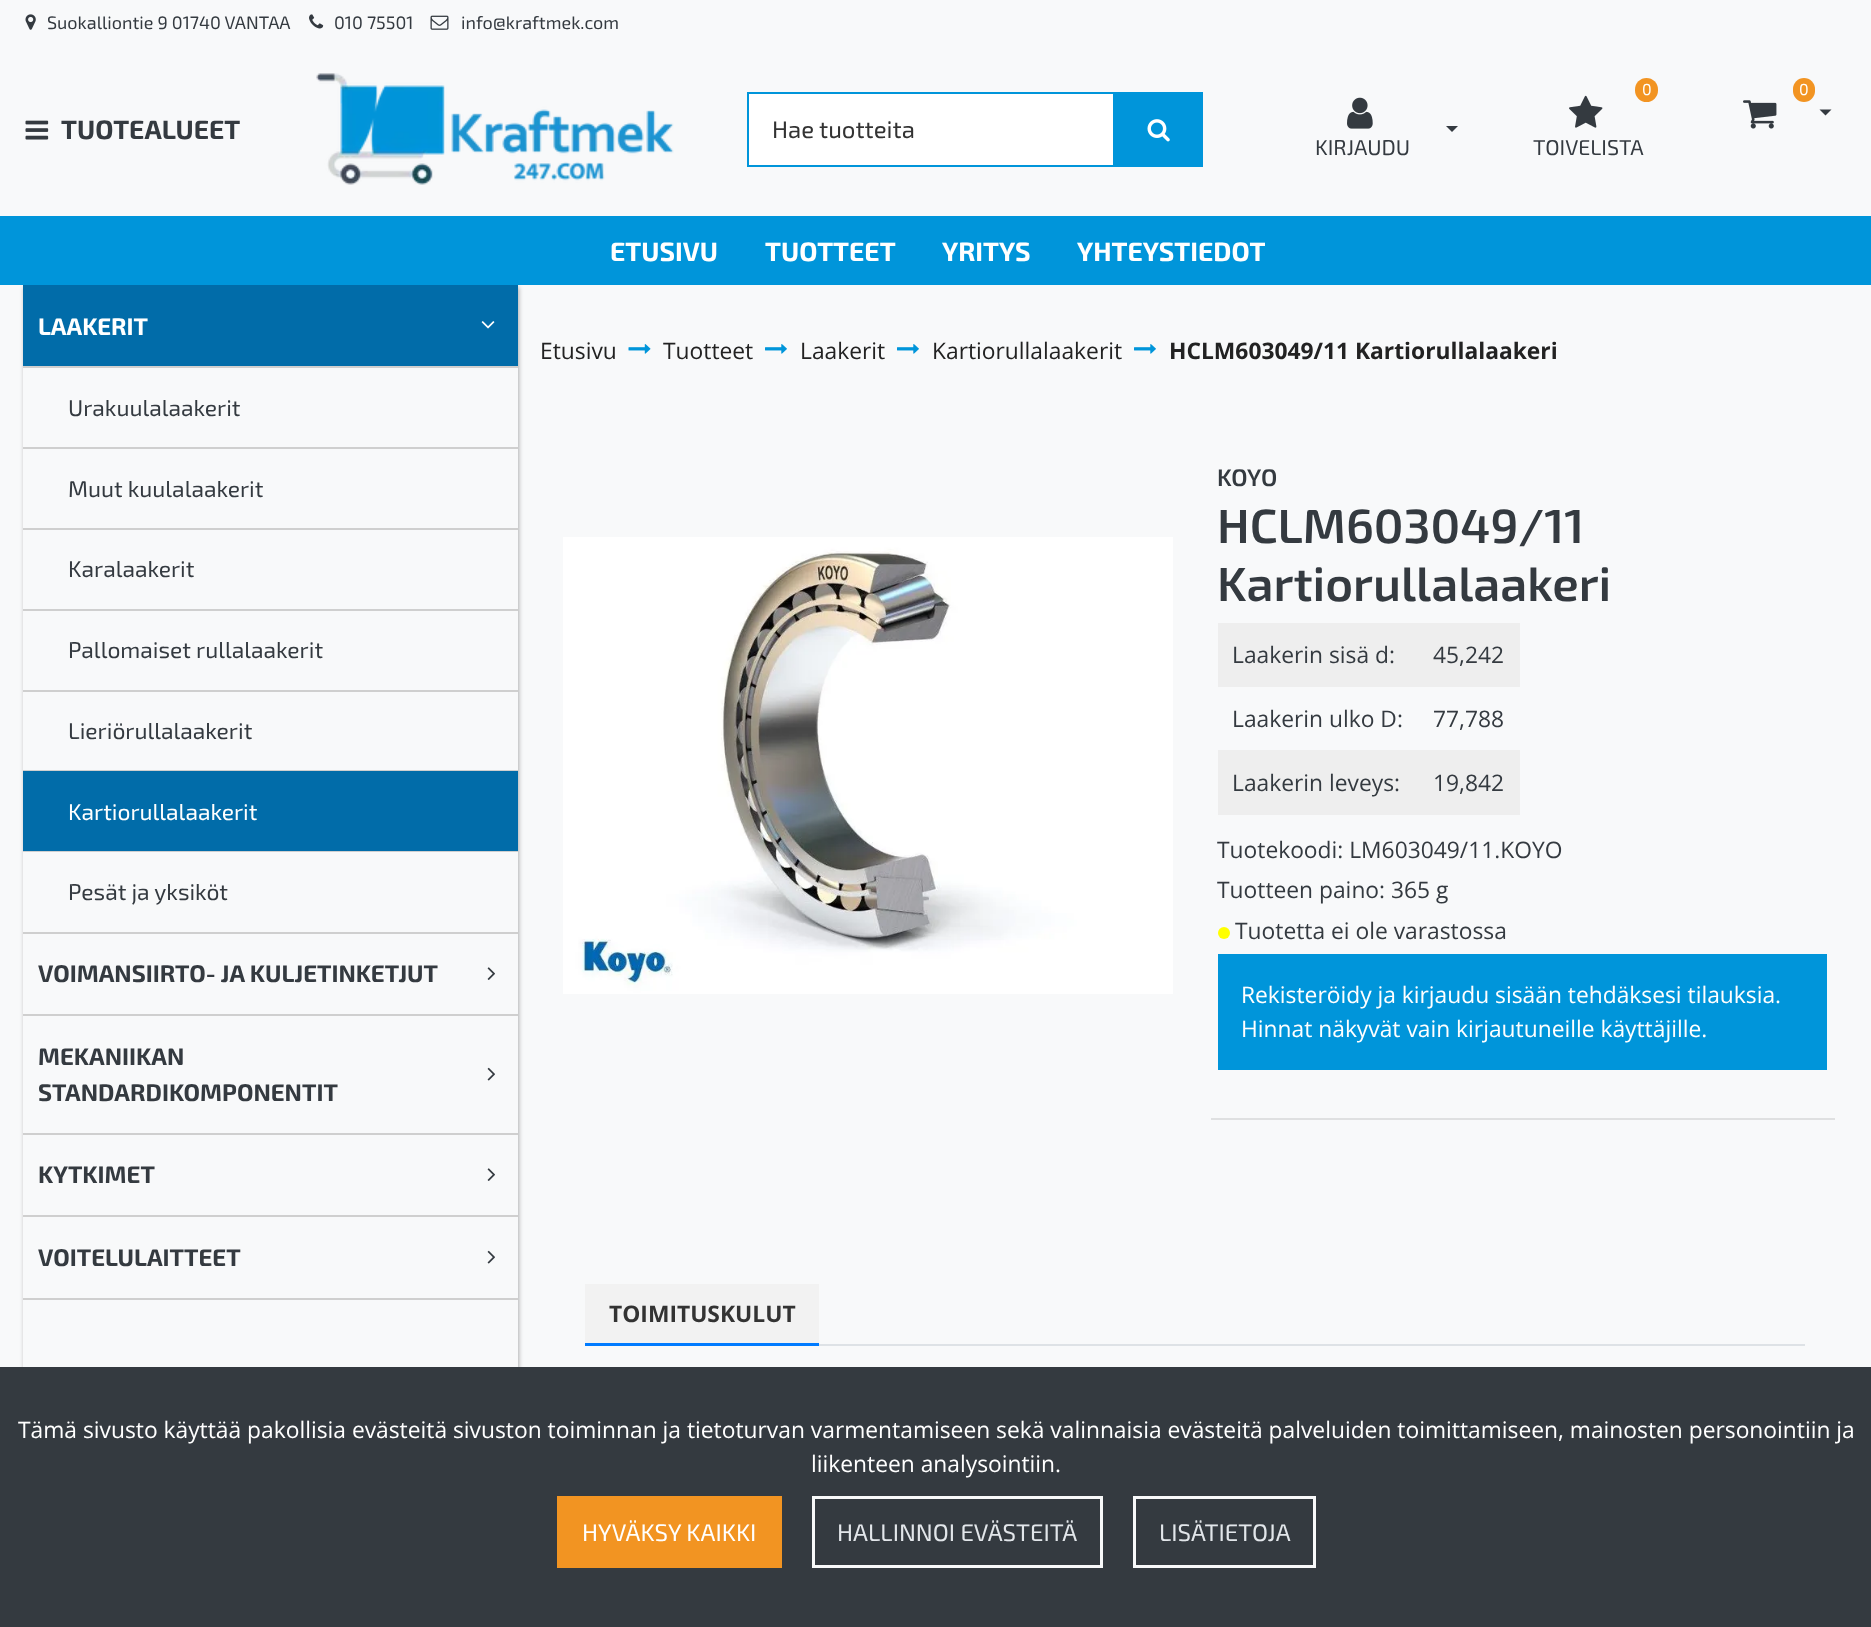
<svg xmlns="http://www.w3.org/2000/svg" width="1871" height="1627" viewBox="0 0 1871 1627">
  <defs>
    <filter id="blur1" x="-50%" y="-200%" width="200%" height="500%"><feGaussianBlur stdDeviation="2"/></filter>
  </defs>
  <rect width="100%" height="100%" fill="#f8f9fa"/>
  <image x="25" y="14" width="11" height="16" href="img1.png"/>
  <text x="47" y="29" font-family="'Exo 2'" font-size="18" fill="#343a40">Suokalliontie 9 01740 VANTAA</text>
  <image x="309" y="14" width="15" height="15" href="img2.png"/>
  <text x="334" y="29" font-family="'Exo 2'" font-size="18" fill="#343a40">010 75501</text>
  <image x="430" y="15" width="19" height="15" href="img3.png"/>
  <text x="461" y="29" font-family="'Exo 2'" font-size="18" fill="#343a40">info@kraftmek.com</text>
  <image x="25" y="120" width="24" height="20" href="img4.png"/>
  <text x="61" y="139" font-family="'Exo 2'" font-size="26.5" font-weight="bold" fill="#343a40">TUOTEALUEET</text>
  <image x="316" y="73" width="358" height="112" href="img5.png"/>
  <rect x="748" y="93" width="366" height="73" fill="#ffffff" stroke="#0095da" stroke-width="2"/>
  <text x="772" y="138" font-family="'Exo 2'" font-size="24" fill="#333333">Hae tuotteita</text>
  <rect x="1115" y="92" width="88" height="75" fill="#0095da"/>
  <image x="1147" y="119" width="23" height="23" href="img6.png"/>
  <rect x="1635" y="78" width="23" height="24" rx="11.5" fill="#f29422"/>
  <text x="1642" y="95" font-family="'Exo 2'" font-size="16" fill="#ffffff">0</text>
  <image x="1569" y="95" width="34" height="33" href="img7.png"/>
  <text x="1533" y="155" font-family="'Exo 2'" font-size="21.5" fill="#343a40">TOIVELISTA</text>
  <rect x="1793" y="78" width="22" height="24" rx="11" fill="#f29422"/>
  <text x="1799" y="95" font-family="'Exo 2'" font-size="16" fill="#ffffff">0</text>
  <image x="1743" y="100" width="34" height="29" href="img8.png"/>
  <path d="M1819.5 109.5H1831.5L1825.5 115.5Z" fill="#343a40"/>
  <path d="M1446 126H1458L1452 132Z" fill="#343a40"/>
  <image x="1347" y="97" width="26" height="32" href="img9.png"/>
  <text x="1315" y="155" font-family="'Exo 2'" font-size="21.5" fill="#343a40">KIRJAUDU</text>
  <rect x="24" y="287" width="495" height="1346" fill="#000000" fill-opacity="0.3" filter="url(#blur1)"/>
  <rect x="0" y="216" width="1871" height="69" fill="#0095da"/>
  <text x="610" y="261" font-family="'Exo 2'" font-size="26.5" font-weight="bold" fill="#ffffff">ETUSIVU</text>
  <text x="765" y="261" font-family="'Exo 2'" font-size="26.5" font-weight="bold" fill="#ffffff">TUOTTEET</text>
  <text x="942" y="261" font-family="'Exo 2'" font-size="26.5" font-weight="bold" fill="#ffffff">YRITYS</text>
  <text x="1077" y="261" font-family="'Exo 2'" font-size="26.5" font-weight="bold" fill="#ffffff">YHTEYSTIEDOT</text>
  <rect x="23" y="368" width="495" height="999" fill="#f8f9fa"/>
  <rect x="23" y="285" width="495" height="81" fill="#016ca9"/>
  <rect x="23" y="366" width="495" height="2" fill="#cfcfcf"/>
  <text x="38" y="335" font-family="'Exo 2'" font-size="24" font-weight="bold" fill="#ffffff">LAAKERIT</text>
  <image x="481" y="321" width="14" height="8" href="img10.png"/>
  <rect x="23" y="447" width="495" height="2" fill="#cfcfcf"/>
  <text x="68" y="416" font-family="'Exo 2'" font-size="22.8" fill="#343a40">Urakuulalaakerit</text>
  <rect x="23" y="528" width="495" height="2" fill="#cfcfcf"/>
  <text x="68" y="497" font-family="'Exo 2'" font-size="22.8" fill="#343a40">Muut kuulalaakerit</text>
  <rect x="23" y="609" width="495" height="2" fill="#cfcfcf"/>
  <text x="68" y="577" font-family="'Exo 2'" font-size="22.8" fill="#343a40">Karalaakerit</text>
  <rect x="23" y="690" width="495" height="2" fill="#cfcfcf"/>
  <text x="68" y="658" font-family="'Exo 2'" font-size="22.8" fill="#343a40">Pallomaiset rullalaakerit</text>
  <rect x="23" y="770" width="495" height="1" fill="#cfcfcf"/>
  <text x="68" y="739" font-family="'Exo 2'" font-size="22.8" fill="#343a40">Lieriörullalaakerit</text>
  <rect x="23" y="771" width="495" height="80" fill="#016ca9"/>
  <rect x="23" y="851" width="495" height="1" fill="#cfcfcf"/>
  <text x="68" y="820" font-family="'Exo 2'" font-size="22.8" fill="#ffffff">Kartiorullalaakerit</text>
  <rect x="23" y="932" width="495" height="2" fill="#cfcfcf"/>
  <text x="68" y="900" font-family="'Exo 2'" font-size="22.8" fill="#343a40">Pesät ja yksiköt</text>
  <rect x="23" y="1014" width="495" height="2" fill="#cfcfcf"/>
  <text x="38" y="982" font-family="'Exo 2'" font-size="24" font-weight="bold" fill="#343a40">VOIMANSIIRTO- JA KULJETINKETJUT</text>
  <image x="487" y="967" width="8" height="13" href="img11.png"/>
  <rect x="23" y="1133" width="495" height="2" fill="#cfcfcf"/>
  <text x="38" y="1065" font-family="'Exo 2'" font-size="24" font-weight="bold" fill="#343a40">MEKANIIKAN</text>
  <text x="38" y="1101" font-family="'Exo 2'" font-size="24" font-weight="bold" fill="#343a40">STANDARDIKOMPONENTIT</text>
  <image x="487" y="1067" width="8" height="14" href="img12.png"/>
  <rect x="23" y="1215" width="495" height="2" fill="#cfcfcf"/>
  <text x="38" y="1183" font-family="'Exo 2'" font-size="24" font-weight="bold" fill="#343a40">KYTKIMET</text>
  <image x="487" y="1168" width="8" height="13" href="img11.png"/>
  <rect x="23" y="1298" width="495" height="2" fill="#cfcfcf"/>
  <text x="38" y="1266" font-family="'Exo 2'" font-size="24" font-weight="bold" fill="#343a40">VOITELULAITTEET</text>
  <image x="487" y="1250" width="8" height="14" href="img12.png"/>
  <text x="540" y="359" font-family="Open Sans" font-size="22.8" fill="#222222">Etusivu</text>
  <image x="628" y="344" width="23" height="10" href="img13.png"/>
  <text x="663" y="359" font-family="Open Sans" font-size="22.8" fill="#222222">Tuotteet</text>
  <image x="765" y="344" width="22" height="10" href="img14.png"/>
  <text x="800" y="359" font-family="Open Sans" font-size="22.8" fill="#222222">Laakerit</text>
  <image x="897" y="344" width="22" height="10" href="img14.png"/>
  <text x="932" y="359" font-family="Open Sans" font-size="22.8" fill="#222222">Kartiorullalaakerit</text>
  <image x="1134" y="344" width="22" height="10" href="img14.png"/>
  <text x="1169" y="359" font-family="Open Sans" font-size="22.8" font-weight="bold" fill="#222222">HCLM603049/11 Kartiorullalaakeri</text>
  <image x="563" y="537" width="610" height="457" href="img15.png"/>
  <text x="1217" y="486" font-family="'Exo 2'" font-size="24" font-weight="600" fill="#343a40">KOYO</text>
  <text x="1217" y="543" font-family="'Exo 2'" font-size="48" font-weight="600" fill="#343a40">HCLM603049/11</text>
  <text x="1217" y="601" font-family="'Exo 2'" font-size="48" font-weight="600" fill="#343a40">Kartiorullalaakeri</text>
  <rect x="1218" y="623" width="302" height="64" fill="#eeeeee"/>
  <text x="1232" y="663" font-family="Open Sans" font-size="22.8" fill="#343a40">Laakerin sisä d:</text>
  <text x="1433" y="663" font-family="Open Sans" font-size="22.8" fill="#343a40">45,242</text>
  <text x="1232" y="727" font-family="Open Sans" font-size="22.8" fill="#343a40">Laakerin ulko D:</text>
  <text x="1433" y="727" font-family="Open Sans" font-size="22.8" fill="#343a40">77,788</text>
  <rect x="1218" y="750" width="302" height="65" fill="#eeeeee"/>
  <text x="1232" y="791" font-family="Open Sans" font-size="22.8" fill="#343a40">Laakerin leveys:</text>
  <text x="1433" y="791" font-family="Open Sans" font-size="22.8" fill="#343a40">19,842</text>
  <text x="1217" y="858" font-family="Open Sans" font-size="22.8" fill="#343a40">Tuotekoodi: LM603049/11.KOYO</text>
  <text x="1217" y="898" font-family="Open Sans" font-size="22.8" fill="#343a40">Tuotteen paino: 365 g</text>
  <circle cx="1224" cy="933" r="6" fill="#ffff00"/>
  <text x="1235" y="939" font-family="Open Sans" font-size="22.8" fill="#343a40">Tuotetta ei ole varastossa</text>
  <rect x="1218" y="954" width="609" height="116" fill="#0095da"/>
  <text x="1241" y="1003" font-family="Open Sans" font-size="22.8" fill="#ffffff">Rekisteröidy ja kirjaudu sisään tehdäksesi tilauksia.</text>
  <text x="1241" y="1037" font-family="Open Sans" font-size="22.8" fill="#ffffff">Hinnat näkyvät vain kirjautuneille käyttäjille.</text>
  <rect x="1211" y="1118" width="624" height="2" fill="#dfe0e1"/>
  <rect x="819" y="1344" width="986" height="2" fill="#dee2e6"/>
  <rect x="585" y="1284" width="234" height="59" fill="#f2f2f2"/>
  <rect x="585" y="1343" width="234" height="3" fill="#007bff"/>
  <text x="609" y="1322" font-family="Open Sans" font-size="22.8" font-weight="bold" fill="#333333">TOIMITUSKULUT</text>
  <rect x="0" y="1367" width="1871" height="260" fill="#343a40"/>
  <text x="18" y="1438" font-family="Open Sans" font-size="22.8" fill="#ffffff">Tämä sivusto käyttää pakollisia evästeitä sivuston toiminnan ja tietoturvan varmentamiseen sekä valinnaisia evästeitä palveluiden toimittamiseen, mainosten personointiin ja</text>
  <text x="811" y="1472" font-family="Open Sans" font-size="22.8" fill="#ffffff">liikenteen analysointiin.</text>
  <rect x="557" y="1496" width="225" height="72" fill="#f29422"/>
  <text x="582" y="1541" font-family="'Exo 2'" font-size="24" fill="#ffffff">HYVÄKSY KAIKKI</text>
  <rect x="813.5" y="1497.5" width="288" height="69" fill="none" stroke="#f8f9fa" stroke-width="3"/>
  <text x="837" y="1541" font-family="'Exo 2'" font-size="24" fill="#e2e6ea">HALLINNOI EVÄSTEITÄ</text>
  <rect x="1134.5" y="1497.5" width="180" height="69" fill="none" stroke="#f8f9fa" stroke-width="3"/>
  <text x="1159" y="1541" font-family="'Exo 2'" font-size="24" fill="#e2e6ea">LISÄTIETOJA</text>
</svg>
